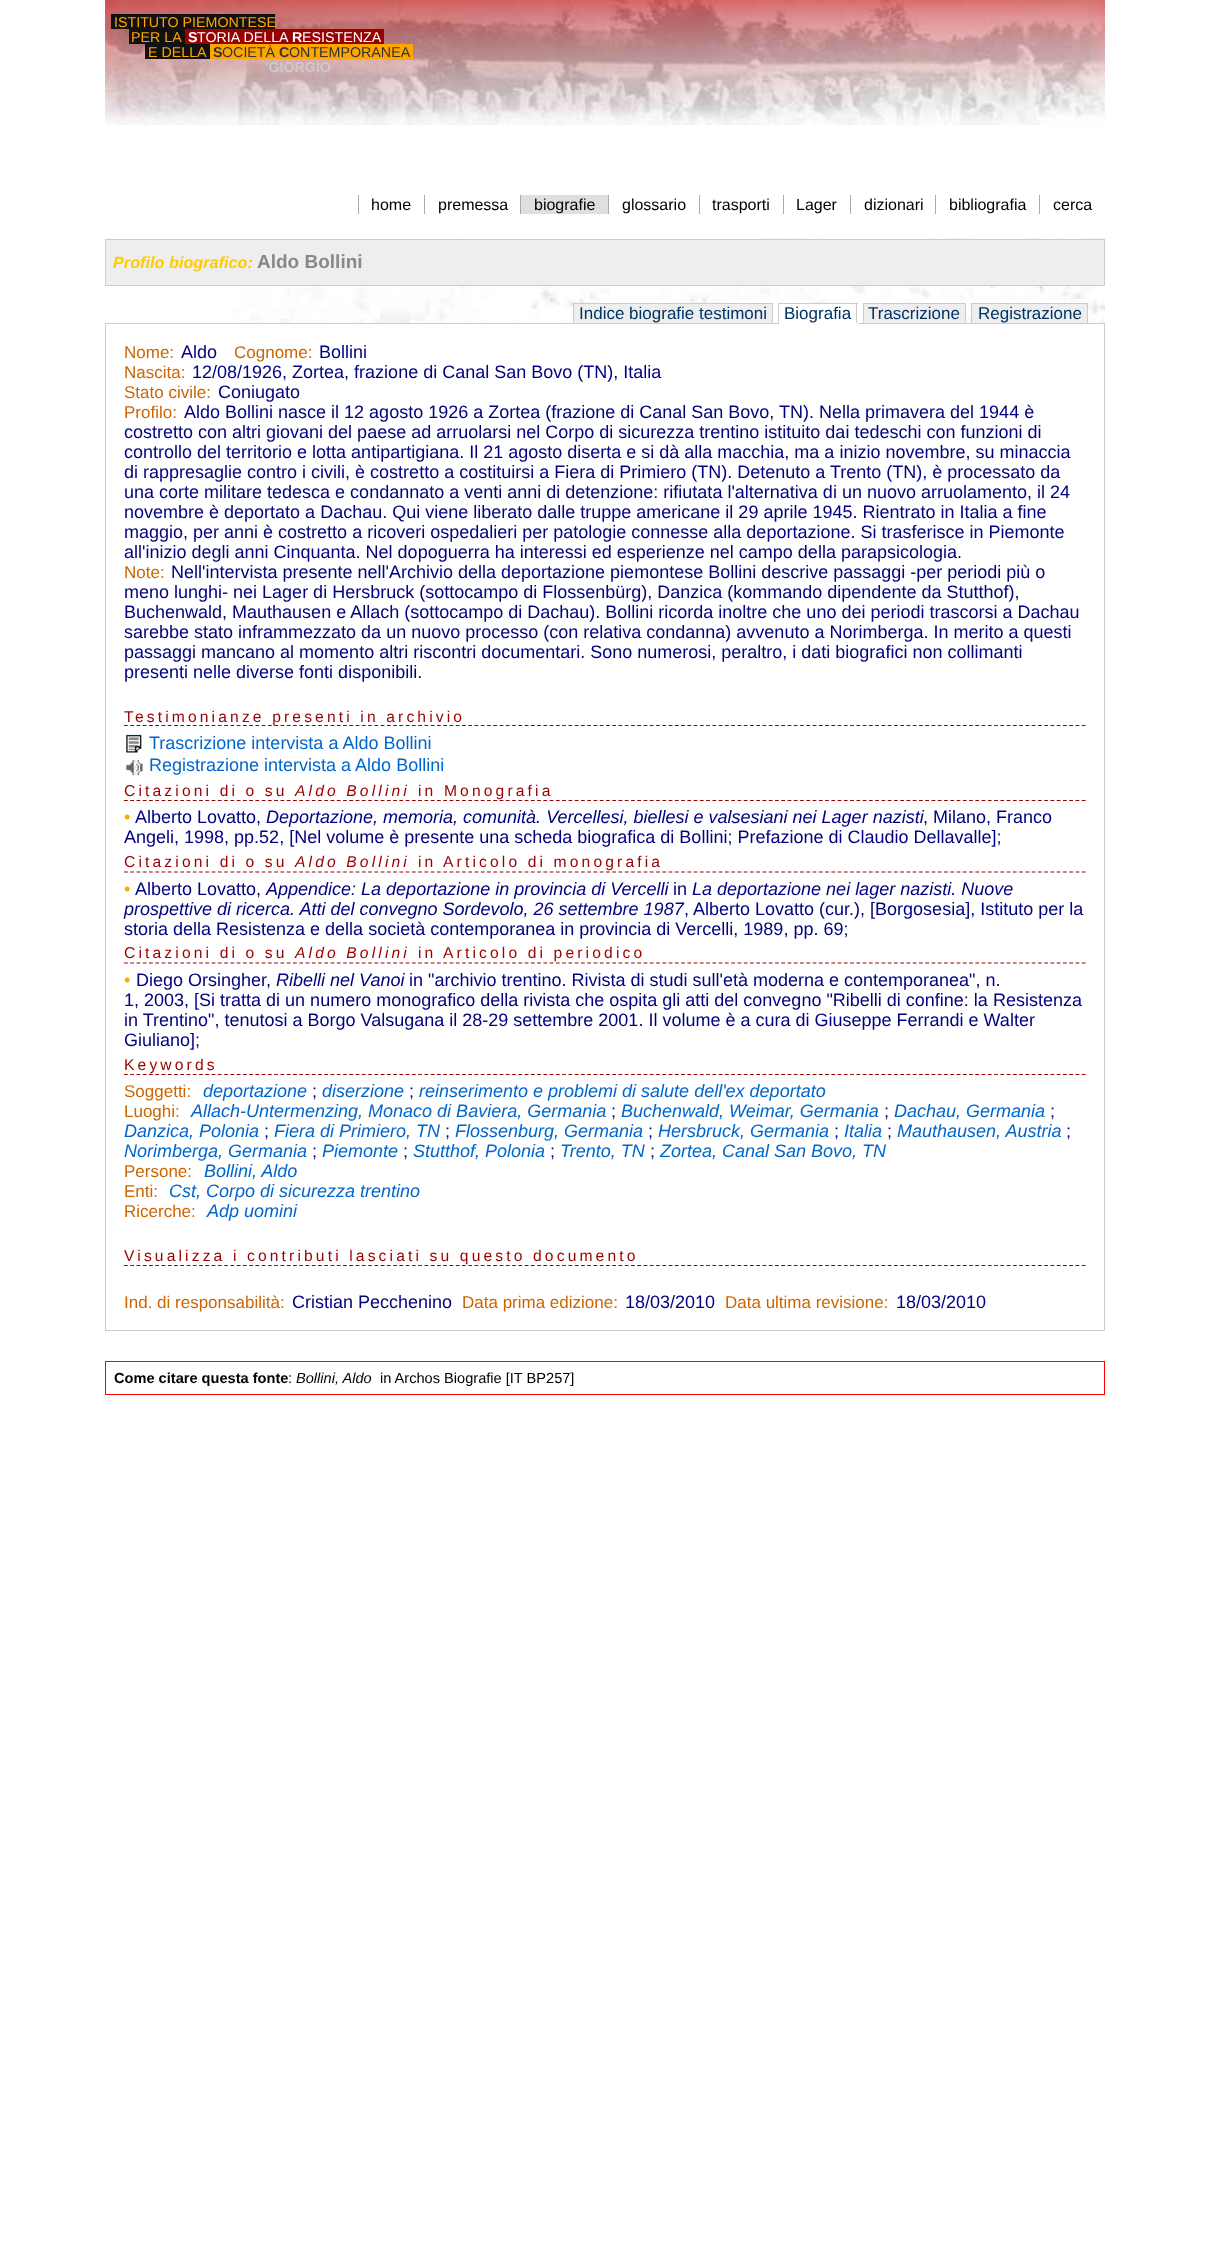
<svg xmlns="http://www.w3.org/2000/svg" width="1209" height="2253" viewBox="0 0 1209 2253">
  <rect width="100%" height="100%" fill="#ffffff"/>
  <image x="105" y="0" width="1000" height="125" href="img1.png"/>
  <rect x="111" y="14" width="164" height="15" fill="#111111"/>
  <text x="114" y="27" font-family="Liberation Sans" font-size="14.25" fill="#ffa500">ISTITUTO PIEMONTESE</text>
  <rect x="129" y="29" width="56" height="15" fill="#111111"/>
  <text x="131" y="42" font-family="Liberation Sans" font-size="14.25" fill="#ffa500">PER LA</text>
  <rect x="185" y="29" width="199" height="15" fill="#990000"/>
  <text x="188" y="42" font-family="Liberation Sans" font-size="14.25" font-weight="bold" fill="#ffffff">S</text>
  <text x="197" y="42" font-family="Liberation Sans" font-size="14.25" fill="#ffffff">TORIA DELLA</text>
  <text x="292" y="42" font-family="Liberation Sans" font-size="14.25" font-weight="bold" fill="#ffffff">R</text>
  <text x="302" y="42" font-family="Liberation Sans" font-size="14.25" fill="#ffffff">ESISTENZA</text>
  <rect x="145" y="44" width="65" height="15" fill="#111111"/>
  <text x="148" y="57" font-family="Liberation Sans" font-size="14.25" fill="#ffa500">E DELLA</text>
  <rect x="210" y="44" width="203" height="15" fill="#ffa500"/>
  <text x="213" y="57" font-family="Liberation Sans" font-size="14.25" font-weight="bold" fill="#333333">S</text>
  <text x="222" y="57" font-family="Liberation Sans" font-size="14.25" fill="#333333">OCIETÀ</text>
  <text x="279" y="57" font-family="Liberation Sans" font-size="14.25" font-weight="bold" fill="#333333">C</text>
  <text x="289" y="57" font-family="Liberation Sans" font-size="14.25" fill="#333333">ONTEMPORANEA</text>
  <text x="265" y="72" font-family="Liberation Sans" font-size="14.25" font-weight="bold" fill="#cccccc">'GIORGIO</text>
  <text x="371" y="210" font-family="Liberation Sans" font-size="16" fill="#000000">home</text>
  <rect x="358" y="195" width="1" height="19" fill="#aaaaaa"/>
  <text x="438" y="210" font-family="Liberation Sans" font-size="16" fill="#000000">premessa</text>
  <rect x="424" y="195" width="1" height="19" fill="#aaaaaa"/>
  <rect x="521" y="195" width="87" height="19" fill="#dfdfdf"/>
  <text x="534" y="210" font-family="Liberation Sans" font-size="16" fill="#000000">biografie</text>
  <rect x="520" y="195" width="1" height="19" fill="#aaaaaa"/>
  <text x="622" y="210" font-family="Liberation Sans" font-size="16" fill="#000000">glossario</text>
  <rect x="608" y="195" width="1" height="19" fill="#aaaaaa"/>
  <text x="712" y="210" font-family="Liberation Sans" font-size="16" fill="#000000">trasporti</text>
  <rect x="699" y="195" width="1" height="19" fill="#aaaaaa"/>
  <text x="796" y="210" font-family="Liberation Sans" font-size="16" fill="#000000">Lager</text>
  <rect x="783" y="195" width="1" height="19" fill="#aaaaaa"/>
  <text x="864" y="210" font-family="Liberation Sans" font-size="16" fill="#000000">dizionari</text>
  <rect x="850" y="195" width="1" height="19" fill="#aaaaaa"/>
  <text x="949" y="210" font-family="Liberation Sans" font-size="16" fill="#000000">bibliografia</text>
  <rect x="935" y="195" width="1" height="19" fill="#aaaaaa"/>
  <text x="1053" y="210" font-family="Liberation Sans" font-size="16" fill="#000000">cerca</text>
  <rect x="1039" y="195" width="1" height="19" fill="#aaaaaa"/>
  <image x="180" y="238" width="925" height="85" href="img2.png"/>
  <rect x="105.5" y="239.5" width="999" height="46" fill="#eeeeee" stroke="#cccccc"/>
  <text x="113" y="268" font-family="Liberation Sans" font-size="16.25" font-weight="bold" font-style="italic" fill="#ffcc00">Profilo biografico:</text>
  <text x="257" y="268" font-family="Liberation Sans" font-size="19" font-weight="bold" fill="#888888">Aldo Bollini</text>
  <rect x="105" y="323" width="1000" height="1" fill="#cccccc"/>
  <rect x="573.5" y="303.5" width="199" height="20" fill="#eeeeee" stroke="#cccccc"/>
  <text x="579" y="319" font-family="Liberation Sans" font-size="17" fill="#003366">Indice biografie testimoni</text>
  <rect x="809" y="304" width="42" height="19" fill="#ffffff"/>
  <text x="784" y="319" font-family="Liberation Sans" font-size="17" fill="#003366">Biografia</text>
  <rect x="778" y="303" width="80" height="1" fill="#cccccc"/>
  <rect x="856" y="303" width="1" height="21" fill="#cccccc"/>
  <rect x="778" y="323" width="80" height="1" fill="#ffffff"/>
  <rect x="778" y="303" width="1" height="21" fill="#cccccc"/>
  <rect x="863.5" y="303.5" width="102" height="20" fill="#eeeeee" stroke="#cccccc"/>
  <text x="868" y="319" font-family="Liberation Sans" font-size="17" fill="#003366">Trascrizione</text>
  <rect x="971.5" y="303.5" width="116" height="20" fill="#eeeeee" stroke="#cccccc"/>
  <text x="978" y="319" font-family="Liberation Sans" font-size="17" fill="#003366">Registrazione</text>
  <rect x="1104" y="324" width="1" height="1007" fill="#cccccc"/>
  <rect x="105" y="1330" width="1000" height="1" fill="#cccccc"/>
  <rect x="105" y="324" width="1" height="1007" fill="#cccccc"/>
  <text x="124" y="358" font-family="Liberation Sans" font-size="17" fill="#cc6600">Nome:</text>
  <text x="181" y="358" font-family="Liberation Sans" font-size="18" fill="#000080">Aldo</text>
  <text x="234" y="358" font-family="Liberation Sans" font-size="17" fill="#cc6600">Cognome:</text>
  <text x="319" y="358" font-family="Liberation Sans" font-size="18" fill="#000080">Bollini</text>
  <text x="124" y="378" font-family="Liberation Sans" font-size="17" fill="#cc6600">Nascita:</text>
  <text x="192" y="378" font-family="Liberation Sans" font-size="18" fill="#000080">12/08/1926, Zortea, frazione di Canal San Bovo (TN), Italia</text>
  <text x="124" y="398" font-family="Liberation Sans" font-size="17" fill="#cc6600">Stato civile:</text>
  <text x="218" y="398" font-family="Liberation Sans" font-size="18" fill="#000080">Coniugato</text>
  <text x="124" y="418" font-family="Liberation Sans" font-size="17" fill="#cc6600">Profilo:</text>
  <text x="184" y="418" font-family="Liberation Sans" font-size="18" fill="#000080">Aldo Bollini nasce il 12 agosto 1926 a Zortea (frazione di Canal San Bovo, TN). Nella primavera del 1944 è</text>
  <text x="124" y="438" font-family="Liberation Sans" font-size="18" fill="#000080">costretto con altri giovani del paese ad arruolarsi nel Corpo di sicurezza trentino istituito dai tedeschi con funzioni di</text>
  <text x="124" y="458" font-family="Liberation Sans" font-size="18" fill="#000080">controllo del territorio e lotta antipartigiana. Il 21 agosto diserta e si dà alla macchia, ma a inizio novembre, su minaccia</text>
  <text x="124" y="478" font-family="Liberation Sans" font-size="18" fill="#000080">di rappresaglie contro i civili, è costretto a costituirsi a Fiera di Primiero (TN). Detenuto a Trento (TN), è processato da</text>
  <text x="124" y="498" font-family="Liberation Sans" font-size="18" fill="#000080">una corte militare tedesca e condannato a venti anni di detenzione: rifiutata l'alternativa di un nuovo arruolamento, il 24</text>
  <text x="124" y="518" font-family="Liberation Sans" font-size="18" fill="#000080">novembre è deportato a Dachau. Qui viene liberato dalle truppe americane il 29 aprile 1945. Rientrato in Italia a fine</text>
  <text x="124" y="538" font-family="Liberation Sans" font-size="18" fill="#000080">maggio, per anni è costretto a ricoveri ospedalieri per patologie connesse alla deportazione. Si trasferisce in Piemonte</text>
  <text x="124" y="558" font-family="Liberation Sans" font-size="18" fill="#000080">all'inizio degli anni Cinquanta. Nel dopoguerra ha interessi ed esperienze nel campo della parapsicologia.</text>
  <text x="124" y="578" font-family="Liberation Sans" font-size="17" fill="#cc6600">Note:</text>
  <text x="171" y="578" font-family="Liberation Sans" font-size="18" fill="#000080">Nell'intervista presente nell'Archivio della deportazione piemontese Bollini descrive passaggi -per periodi più o</text>
  <text x="124" y="598" font-family="Liberation Sans" font-size="18" fill="#000080">meno lunghi- nei Lager di Hersbruck (sottocampo di Flossenbürg), Danzica (kommando dipendente da Stutthof),</text>
  <text x="124" y="618" font-family="Liberation Sans" font-size="18" fill="#000080">Buchenwald, Mauthausen e Allach (sottocampo di Dachau). Bollini ricorda inoltre che uno dei periodi trascorsi a Dachau</text>
  <text x="124" y="638" font-family="Liberation Sans" font-size="18" fill="#000080">sarebbe stato inframmezzato da un nuovo processo (con relativa condanna) avvenuto a Norimberga. In merito a questi</text>
  <text x="124" y="658" font-family="Liberation Sans" font-size="18" fill="#000080">passaggi mancano al momento altri riscontri documentari. Sono numerosi, peraltro, i dati biografici non collimanti</text>
  <text x="124" y="678" font-family="Liberation Sans" font-size="18" fill="#000080">presenti nelle diverse fonti disponibili.</text>
  <path d="M124 725.5H1086" fill="none" stroke="#990000" stroke-width="1.2" stroke-dasharray="3.75 2.51"/>
  <text x="124" y="722" font-family="Liberation Sans" font-size="15.65" letter-spacing="3.13" fill="#990000">Testimonianze presenti in archivio</text>
  <image x="126" y="734" width="16" height="19" href="img3.png"/>
  <text x="149" y="749" font-family="Liberation Sans" font-size="18" fill="#0066cc">Trascrizione intervista a Aldo Bollini</text>
  <image x="126" y="759" width="17" height="17" href="img4.png"/>
  <text x="149" y="771" font-family="Liberation Sans" font-size="18" fill="#0066cc">Registrazione intervista a Aldo Bollini</text>
  <path d="M124 800.5H1086" fill="none" stroke="#990000" stroke-width="1.2" stroke-dasharray="3.75 2.51"/>
  <text x="124" y="796" font-family="Liberation Sans" font-size="15.65" letter-spacing="3.13" fill="#990000">Citazioni di o su</text>
  <text x="295" y="796" font-family="Liberation Sans" font-size="15.65" font-style="italic" letter-spacing="3.13" fill="#990000">Aldo Bollini</text>
  <text x="418" y="796" font-family="Liberation Sans" font-size="15.65" letter-spacing="3.13" fill="#990000">in Monografia</text>
  <text x="124" y="823" font-family="Liberation Sans" font-size="18" fill="#ffa500">•</text>
  <text x="135" y="823" font-family="Liberation Sans" font-size="18" fill="#000080">Alberto Lovatto,</text>
  <text x="266" y="823" font-family="Liberation Sans" font-size="18" font-style="italic" fill="#000080">Deportazione, memoria, comunità. Vercellesi, biellesi e valsesiani nei Lager nazisti</text>
  <text x="923" y="823" font-family="Liberation Sans" font-size="18" fill="#000080">, Milano, Franco</text>
  <text x="124" y="843" font-family="Liberation Sans" font-size="18" fill="#000080">Angeli, 1998, pp.52, [Nel volume è presente una scheda biografica di Bollini; Prefazione di Claudio Dellavalle];</text>
  <path d="M124 872H1086" fill="none" stroke="#990000" stroke-width="1.2" stroke-dasharray="3.75 2.51"/>
  <text x="124" y="867" font-family="Liberation Sans" font-size="15.65" letter-spacing="3.13" fill="#990000">Citazioni di o su</text>
  <text x="295" y="867" font-family="Liberation Sans" font-size="15.65" font-style="italic" letter-spacing="3.13" fill="#990000">Aldo Bollini</text>
  <text x="418" y="867" font-family="Liberation Sans" font-size="15.65" letter-spacing="3.13" fill="#990000">in Articolo di monografia</text>
  <text x="124" y="895" font-family="Liberation Sans" font-size="18" fill="#ffa500">•</text>
  <text x="135" y="895" font-family="Liberation Sans" font-size="18" fill="#000080">Alberto Lovatto,</text>
  <text x="266" y="895" font-family="Liberation Sans" font-size="18" font-style="italic" fill="#000080">Appendice: La deportazione in provincia di Vercelli</text>
  <text x="673" y="895" font-family="Liberation Sans" font-size="18" fill="#000080">in</text>
  <text x="692" y="895" font-family="Liberation Sans" font-size="18" font-style="italic" fill="#000080">La deportazione nei lager nazisti. Nuove</text>
  <text x="124" y="915" font-family="Liberation Sans" font-size="18" font-style="italic" fill="#000080">prospettive di ricerca. Atti del convegno Sordevolo, 26 settembre 1987</text>
  <text x="684" y="915" font-family="Liberation Sans" font-size="18" fill="#000080">, Alberto Lovatto (cur.), [Borgosesia], Istituto per la</text>
  <text x="124" y="935" font-family="Liberation Sans" font-size="18" fill="#000080">storia della Resistenza e della società contemporanea in provincia di Vercelli, 1989, pp. 69;</text>
  <path d="M124 963H1086" fill="none" stroke="#990000" stroke-width="1.2" stroke-dasharray="3.75 2.51"/>
  <text x="124" y="958" font-family="Liberation Sans" font-size="15.65" letter-spacing="3.13" fill="#990000">Citazioni di o su</text>
  <text x="295" y="958" font-family="Liberation Sans" font-size="15.65" font-style="italic" letter-spacing="3.13" fill="#990000">Aldo Bollini</text>
  <text x="418" y="958" font-family="Liberation Sans" font-size="15.65" letter-spacing="3.13" fill="#990000">in Articolo di periodico</text>
  <text x="124" y="986" font-family="Liberation Sans" font-size="18" fill="#ffa500">•</text>
  <text x="136" y="986" font-family="Liberation Sans" font-size="18" fill="#000080">Diego Orsingher,</text>
  <text x="276" y="986" font-family="Liberation Sans" font-size="18" font-style="italic" fill="#000080">Ribelli nel Vanoi</text>
  <text x="409" y="986" font-family="Liberation Sans" font-size="18" fill="#000080">in "archivio trentino. Rivista di studi sull'età moderna e contemporanea", n.</text>
  <text x="124" y="1006" font-family="Liberation Sans" font-size="18" fill="#000080">1, 2003, [Si tratta di un numero monografico della rivista che ospita gli atti del convegno "Ribelli di confine: la Resistenza</text>
  <text x="124" y="1026" font-family="Liberation Sans" font-size="18" fill="#000080">in Trentino", tenutosi a Borgo Valsugana il 28-29 settembre 2001. Il volume è a cura di Giuseppe Ferrandi e Walter</text>
  <text x="124" y="1046" font-family="Liberation Sans" font-size="18" fill="#000080">Giuliano];</text>
  <path d="M124 1074.5H1086" fill="none" stroke="#990000" stroke-width="1.2" stroke-dasharray="3.75 2.51"/>
  <text x="124" y="1070" font-family="Liberation Sans" font-size="15.65" letter-spacing="3.13" fill="#990000">Keywords</text>
  <text x="124" y="1097" font-family="Liberation Sans" font-size="17" fill="#cc6600">Soggetti:</text>
  <text x="203" y="1097" font-family="Liberation Sans" font-size="18" font-style="italic" fill="#0066cc">deportazione</text>
  <text x="312" y="1097" font-family="Liberation Sans" font-size="18" fill="#000080">;</text>
  <text x="322" y="1097" font-family="Liberation Sans" font-size="18" font-style="italic" fill="#0066cc">diserzione</text>
  <text x="409" y="1097" font-family="Liberation Sans" font-size="18" fill="#000080">;</text>
  <text x="419" y="1097" font-family="Liberation Sans" font-size="18" font-style="italic" fill="#0066cc">reinserimento e problemi di salute dell'ex deportato</text>
  <text x="124" y="1117" font-family="Liberation Sans" font-size="17" fill="#cc6600">Luoghi:</text>
  <text x="191" y="1117" font-family="Liberation Sans" font-size="18" font-style="italic" fill="#0066cc">Allach-Untermenzing, Monaco di Baviera, Germania</text>
  <text x="611" y="1117" font-family="Liberation Sans" font-size="18" fill="#000080">;</text>
  <text x="621" y="1117" font-family="Liberation Sans" font-size="18" font-style="italic" fill="#0066cc">Buchenwald, Weimar, Germania</text>
  <text x="884" y="1117" font-family="Liberation Sans" font-size="18" fill="#000080">;</text>
  <text x="894" y="1117" font-family="Liberation Sans" font-size="18" font-style="italic" fill="#0066cc">Dachau, Germania</text>
  <text x="1050" y="1117" font-family="Liberation Sans" font-size="18" fill="#000080">;</text>
  <text x="124" y="1137" font-family="Liberation Sans" font-size="18" font-style="italic" fill="#0066cc">Danzica, Polonia</text>
  <text x="264" y="1137" font-family="Liberation Sans" font-size="18" fill="#000080">;</text>
  <text x="274" y="1137" font-family="Liberation Sans" font-size="18" font-style="italic" fill="#0066cc">Fiera di Primiero, TN</text>
  <text x="445" y="1137" font-family="Liberation Sans" font-size="18" fill="#000080">;</text>
  <text x="455" y="1137" font-family="Liberation Sans" font-size="18" font-style="italic" fill="#0066cc">Flossenburg, Germania</text>
  <text x="648" y="1137" font-family="Liberation Sans" font-size="18" fill="#000080">;</text>
  <text x="658" y="1137" font-family="Liberation Sans" font-size="18" font-style="italic" fill="#0066cc">Hersbruck, Germania</text>
  <text x="834" y="1137" font-family="Liberation Sans" font-size="18" fill="#000080">;</text>
  <text x="844" y="1137" font-family="Liberation Sans" font-size="18" font-style="italic" fill="#0066cc">Italia</text>
  <text x="887" y="1137" font-family="Liberation Sans" font-size="18" fill="#000080">;</text>
  <text x="897" y="1137" font-family="Liberation Sans" font-size="18" font-style="italic" fill="#0066cc">Mauthausen, Austria</text>
  <text x="1066" y="1137" font-family="Liberation Sans" font-size="18" fill="#000080">;</text>
  <text x="124" y="1157" font-family="Liberation Sans" font-size="18" font-style="italic" fill="#0066cc">Norimberga, Germania</text>
  <text x="312" y="1157" font-family="Liberation Sans" font-size="18" fill="#000080">;</text>
  <text x="322" y="1157" font-family="Liberation Sans" font-size="18" font-style="italic" fill="#0066cc">Piemonte</text>
  <text x="403" y="1157" font-family="Liberation Sans" font-size="18" fill="#000080">;</text>
  <text x="413" y="1157" font-family="Liberation Sans" font-size="18" font-style="italic" fill="#0066cc">Stutthof, Polonia</text>
  <text x="550" y="1157" font-family="Liberation Sans" font-size="18" fill="#000080">;</text>
  <text x="560" y="1157" font-family="Liberation Sans" font-size="18" font-style="italic" fill="#0066cc">Trento, TN</text>
  <text x="650" y="1157" font-family="Liberation Sans" font-size="18" fill="#000080">;</text>
  <text x="660" y="1157" font-family="Liberation Sans" font-size="18" font-style="italic" fill="#0066cc">Zortea, Canal San Bovo, TN</text>
  <text x="124" y="1177" font-family="Liberation Sans" font-size="17" fill="#cc6600">Persone:</text>
  <text x="204" y="1177" font-family="Liberation Sans" font-size="18" font-style="italic" fill="#0066cc">Bollini, Aldo</text>
  <text x="124" y="1197" font-family="Liberation Sans" font-size="17" fill="#cc6600">Enti:</text>
  <text x="169" y="1197" font-family="Liberation Sans" font-size="18" font-style="italic" fill="#0066cc">Cst, Corpo di sicurezza trentino</text>
  <text x="124" y="1217" font-family="Liberation Sans" font-size="17" fill="#cc6600">Ricerche:</text>
  <text x="207" y="1217" font-family="Liberation Sans" font-size="18" font-style="italic" fill="#0066cc">Adp uomini</text>
  <path d="M124 1265.5H1086" fill="none" stroke="#990000" stroke-width="1.2" stroke-dasharray="3.75 2.51"/>
  <text x="124" y="1261" font-family="Liberation Sans" font-size="15.65" letter-spacing="3.13" fill="#990000">Visualizza i contributi lasciati su questo documento</text>
  <text x="124" y="1308" font-family="Liberation Sans" font-size="17" fill="#cc6600">Ind. di responsabilità:</text>
  <text x="292" y="1308" font-family="Liberation Sans" font-size="18" fill="#000080">Cristian Pecchenino</text>
  <text x="462" y="1308" font-family="Liberation Sans" font-size="17" fill="#cc6600">Data prima edizione:</text>
  <text x="625" y="1308" font-family="Liberation Sans" font-size="18" fill="#000080">18/03/2010</text>
  <text x="725" y="1308" font-family="Liberation Sans" font-size="17" fill="#cc6600">Data ultima revisione:</text>
  <text x="896" y="1308" font-family="Liberation Sans" font-size="18" fill="#000080">18/03/2010</text>
  <rect x="105.5" y="1361.5" width="999" height="33" fill="none" stroke="#ff0000"/>
  <text x="114" y="1383" font-family="Liberation Sans" font-size="14.6" font-weight="bold" fill="#000000">Come citare questa fonte</text>
  <text x="288" y="1383" font-family="Liberation Sans" font-size="14.6" fill="#000000">:</text>
  <text x="296" y="1383" font-family="Liberation Sans" font-size="14.6" font-style="italic" fill="#000000">Bollini, Aldo</text>
  <text x="380" y="1383" font-family="Liberation Sans" font-size="14.6" fill="#000000">in Archos Biografie [IT BP257]</text>
</svg>
